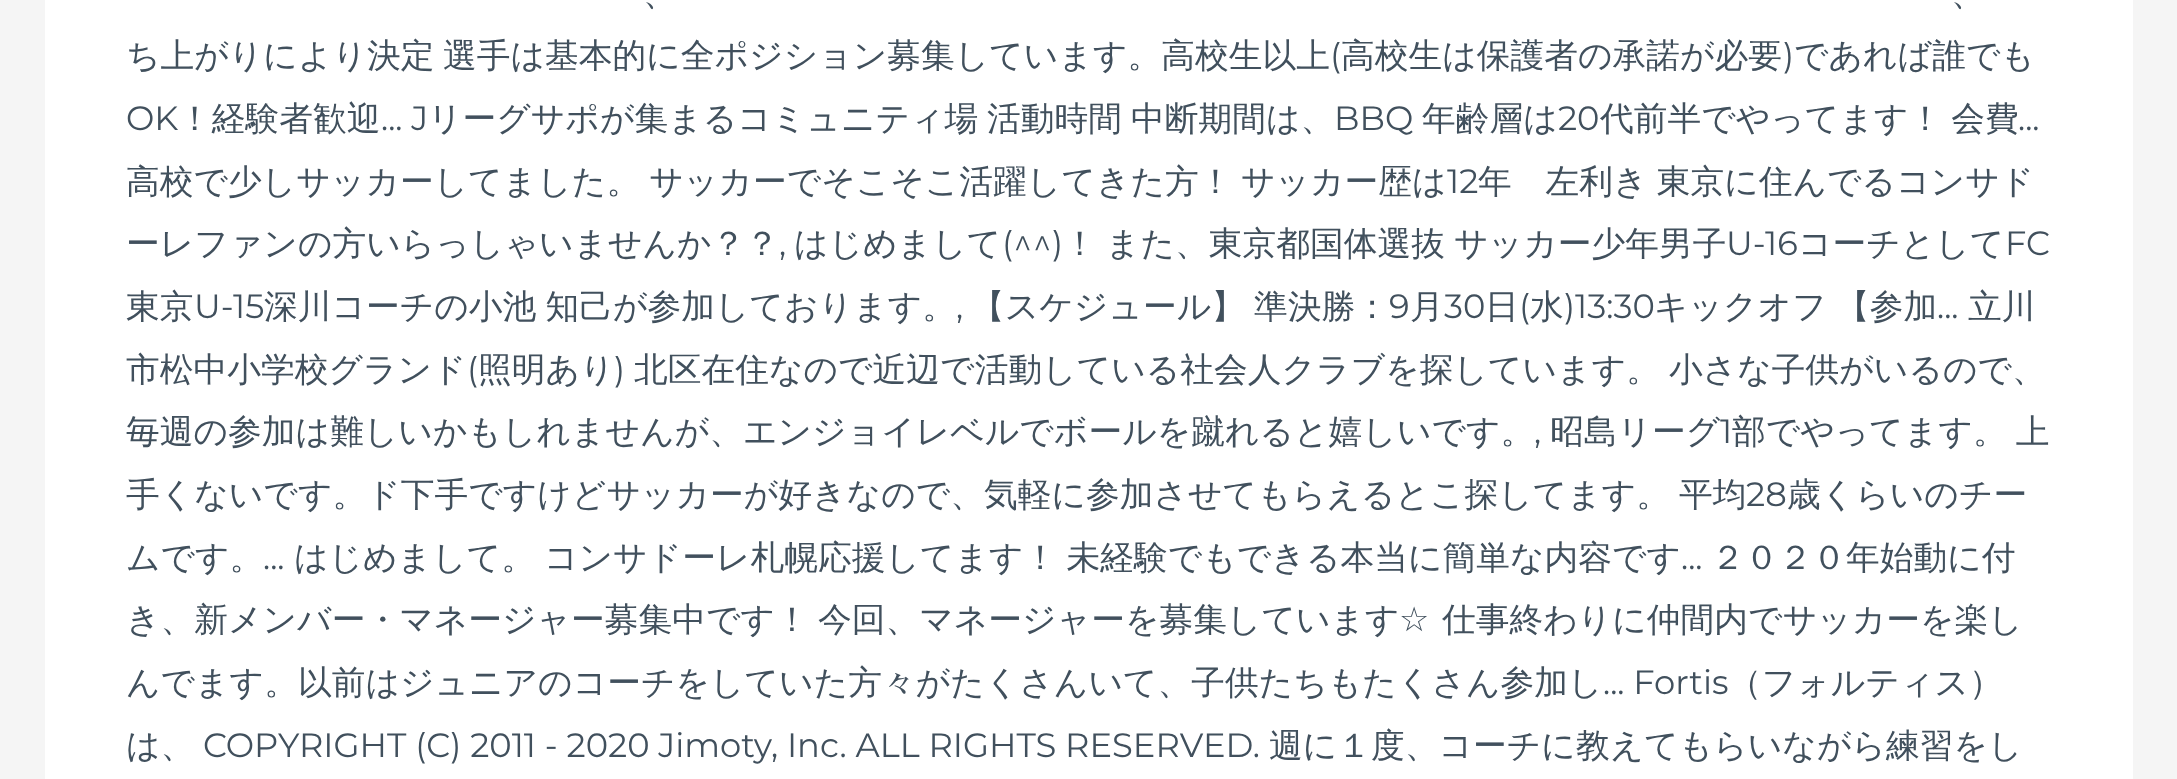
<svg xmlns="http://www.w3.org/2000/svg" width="2177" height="779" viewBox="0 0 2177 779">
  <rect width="100%" height="100%" fill="#f5f5f5"/>
  <rect x="45" y="0" width="2088" height="779" fill="#ffffff"/>
  <text x="643" y="5" font-family="WenQuanYi Zen Hei" font-size="33.75" font-weight="500" fill="#41505d">、</text>
  <text x="1951" y="5" font-family="WenQuanYi Zen Hei" font-size="33.75" font-weight="500" fill="#41505d">、</text>
  <text x="126" y="67" font-family="WenQuanYi Zen Hei" font-size="33.75" font-weight="500" fill="#41505d">ち上がりにより決定</text>
  <text x="443" y="67" font-family="WenQuanYi Zen Hei" font-size="33.75" font-weight="500" fill="#41505d">選手は基本的に全ポジション募集しています。高校生以上</text>
  <text x="1330" y="67" font-family="Montserrat" font-size="33.75" fill="#41505d">(</text>
  <text x="1341" y="67" font-family="WenQuanYi Zen Hei" font-size="33.75" font-weight="500" fill="#41505d">高校生は保護者の承諾が必要</text>
  <text x="1783" y="67" font-family="Montserrat" font-size="33.75" fill="#41505d">)</text>
  <text x="1794" y="67" font-family="WenQuanYi Zen Hei" font-size="33.75" font-weight="500" fill="#41505d">であれば誰でも</text>
  <text x="126" y="130" font-family="Montserrat" font-size="33.75" fill="#41505d">OK</text>
  <text x="178" y="130" font-family="WenQuanYi Zen Hei" font-size="33.75" font-weight="500" fill="#41505d">！経験者歓迎</text>
  <text x="381" y="130" font-family="Montserrat" font-size="33.75" fill="#41505d">... J</text>
  <text x="428" y="130" font-family="WenQuanYi Zen Hei" font-size="33.75" font-weight="500" fill="#41505d">リーグサポが集まるコミュニティ場</text>
  <text x="987" y="130" font-family="WenQuanYi Zen Hei" font-size="33.75" font-weight="500" fill="#41505d">活動時間</text>
  <text x="1131" y="130" font-family="WenQuanYi Zen Hei" font-size="33.75" font-weight="500" fill="#41505d">中断期間は、</text>
  <text x="1334" y="130" font-family="Montserrat" font-size="33.75" fill="#41505d">BBQ</text>
  <text x="1422" y="130" font-family="WenQuanYi Zen Hei" font-size="33.75" font-weight="500" fill="#41505d">年齢層は</text>
  <text x="1558" y="130" font-family="Montserrat" font-size="33.75" fill="#41505d">20</text>
  <text x="1600" y="130" word-spacing="-1" font-family="WenQuanYi Zen Hei" font-size="33.75" font-weight="500" fill="#41505d">代前半でやってます！ 会費</text>
  <text x="2018" y="130" font-family="Montserrat" font-size="33.75" fill="#41505d">...</text>
  <text x="126" y="193" word-spacing="-1" font-family="WenQuanYi Zen Hei" font-size="33.75" font-weight="500" fill="#41505d">高校で少しサッカーしてました。 サッカーでそこそこ活躍してきた方！</text>
  <text x="1241" y="193" font-family="WenQuanYi Zen Hei" font-size="33.75" font-weight="500" fill="#41505d">サッカー歴は</text>
  <text x="1447" y="193" font-family="Montserrat" font-size="33.75" fill="#41505d">12</text>
  <text x="1478" y="193" word-spacing="-1" font-family="WenQuanYi Zen Hei" font-size="33.75" font-weight="500" fill="#41505d">年　左利き 東京に住んでるコンサド</text>
  <text x="126" y="255" font-family="WenQuanYi Zen Hei" font-size="33.75" font-weight="500" fill="#41505d">ーレファンの方いらっしゃいませんか？？</text>
  <text x="779" y="255" font-family="Montserrat" font-size="33.75" fill="#41505d">,</text>
  <text x="794" y="255" font-family="WenQuanYi Zen Hei" font-size="33.75" font-weight="500" fill="#41505d">はじめまして</text>
  <text x="1002" y="255" font-family="Montserrat" font-size="33.75" fill="#41505d">(^^)</text>
  <text x="1063" y="255" word-spacing="-1" font-family="WenQuanYi Zen Hei" font-size="33.75" font-weight="500" fill="#41505d">！ また、東京都国体選抜 サッカー少年男子</text>
  <text x="1726" y="255" font-family="Montserrat" font-size="33.75" fill="#41505d">U-16</text>
  <text x="1798" y="255" font-family="WenQuanYi Zen Hei" font-size="33.75" font-weight="500" fill="#41505d">コーチとして</text>
  <text x="2005" y="255" font-family="Montserrat" font-size="33.75" fill="#41505d">FC</text>
  <text x="126" y="318" font-family="WenQuanYi Zen Hei" font-size="33.75" font-weight="500" fill="#41505d">東京</text>
  <text x="194" y="318" font-family="Montserrat" font-size="33.75" fill="#41505d">U-15</text>
  <text x="264" y="318" word-spacing="-1" font-family="WenQuanYi Zen Hei" font-size="33.75" font-weight="500" fill="#41505d">深川コーチの小池 知己が参加しております。</text>
  <text x="956" y="318" font-family="Montserrat" font-size="33.75" fill="#41505d">,</text>
  <text x="971" y="318" font-family="WenQuanYi Zen Hei" font-size="33.75" font-weight="500" fill="#41505d">【スケジュール】</text>
  <text x="1254" y="318" font-family="WenQuanYi Zen Hei" font-size="33.75" font-weight="500" fill="#41505d">準決勝：</text>
  <text x="1389" y="318" font-family="Montserrat" font-size="33.75" fill="#41505d">9</text>
  <text x="1410" y="318" font-family="WenQuanYi Zen Hei" font-size="33.75" font-weight="500" fill="#41505d">月</text>
  <text x="1444" y="318" font-family="Montserrat" font-size="33.75" fill="#41505d">30</text>
  <text x="1485" y="318" font-family="WenQuanYi Zen Hei" font-size="33.75" font-weight="500" fill="#41505d">日</text>
  <text x="1519" y="318" font-family="Montserrat" font-size="33.75" fill="#41505d">(</text>
  <text x="1530" y="318" font-family="WenQuanYi Zen Hei" font-size="33.75" font-weight="500" fill="#41505d">水</text>
  <text x="1564" y="318" font-family="Montserrat" font-size="33.75" fill="#41505d">)13:30</text>
  <text x="1654" y="318" font-family="WenQuanYi Zen Hei" font-size="33.75" font-weight="500" fill="#41505d">キックオフ</text>
  <text x="1836" y="318" font-family="WenQuanYi Zen Hei" font-size="33.75" font-weight="500" fill="#41505d">【参加</text>
  <text x="1937" y="318" font-family="Montserrat" font-size="33.75" fill="#41505d">...</text>
  <text x="1968" y="318" font-family="WenQuanYi Zen Hei" font-size="33.75" font-weight="500" fill="#41505d">立川</text>
  <text x="126" y="381" font-family="WenQuanYi Zen Hei" font-size="33.75" font-weight="500" fill="#41505d">市松中小学校グランド</text>
  <text x="467" y="381" font-family="Montserrat" font-size="33.75" fill="#41505d">(</text>
  <text x="478" y="381" font-family="WenQuanYi Zen Hei" font-size="33.75" font-weight="500" fill="#41505d">照明あり</text>
  <text x="614" y="381" font-family="Montserrat" font-size="33.75" fill="#41505d">)</text>
  <text x="634" y="381" font-family="WenQuanYi Zen Hei" font-size="33.75" font-weight="500" fill="#41505d">北区在住なので近辺で活動している社会人クラブを探しています。</text>
  <text x="1669" y="381" font-family="WenQuanYi Zen Hei" font-size="33.75" font-weight="500" fill="#41505d">小さな子供がいるので、</text>
  <text x="126" y="443" font-family="WenQuanYi Zen Hei" font-size="33.75" font-weight="500" fill="#41505d">毎週の参加は難しいかもしれませんが、エンジョイレベルでボールを蹴れると嬉しいです。</text>
  <text x="1534" y="443" font-family="Montserrat" font-size="33.75" fill="#41505d">,</text>
  <text x="1550" y="443" font-family="WenQuanYi Zen Hei" font-size="33.75" font-weight="500" fill="#41505d">昭島リーグ</text>
  <text x="1720" y="443" font-family="Montserrat" font-size="33.75" fill="#41505d">1</text>
  <text x="1732" y="443" word-spacing="-1" font-family="WenQuanYi Zen Hei" font-size="33.75" font-weight="500" fill="#41505d">部でやってます。 上</text>
  <text x="126" y="506" font-family="WenQuanYi Zen Hei" font-size="33.75" font-weight="500" fill="#41505d">手くないです。ド下手ですけどサッカーが好きなので、気軽に参加させてもらえるとこ探してます。</text>
  <text x="1679" y="506" font-family="WenQuanYi Zen Hei" font-size="33.75" font-weight="500" fill="#41505d">平均</text>
  <text x="1746" y="506" font-family="Montserrat" font-size="33.75" fill="#41505d">28</text>
  <text x="1787" y="506" font-family="WenQuanYi Zen Hei" font-size="33.75" font-weight="500" fill="#41505d">歳くらいのチー</text>
  <text x="126" y="569" font-family="WenQuanYi Zen Hei" font-size="33.75" font-weight="500" fill="#41505d">ムです。</text>
  <text x="263" y="569" font-family="Montserrat" font-size="33.75" fill="#41505d">...</text>
  <text x="294" y="569" font-family="WenQuanYi Zen Hei" font-size="33.75" font-weight="500" fill="#41505d">はじめまして。</text>
  <text x="544" y="569" word-spacing="-1" font-family="WenQuanYi Zen Hei" font-size="33.75" font-weight="500" fill="#41505d">コンサドーレ札幌応援してます！ 未経験でもできる本当に簡単な内容です</text>
  <text x="1681" y="569" font-family="Montserrat" font-size="33.75" fill="#41505d">...</text>
  <text x="1711" y="569" font-family="WenQuanYi Zen Hei" font-size="33.75" font-weight="500" fill="#41505d">２０２０年始動に付</text>
  <text x="126" y="631" font-family="WenQuanYi Zen Hei" font-size="33.75" font-weight="500" fill="#41505d">き、新メンバー・マネージャー募集中です！</text>
  <text x="818" y="631" font-family="WenQuanYi Zen Hei" font-size="33.75" font-weight="500" fill="#41505d">今回、マネージャーを募集しています</text>
  <text x="1399" y="631" font-family="DejaVu Sans" font-size="33.75" fill="#41505d">☆</text>
  <text x="1442" y="631" font-family="WenQuanYi Zen Hei" font-size="33.75" font-weight="500" fill="#41505d">仕事終わりに仲間内でサッカーを楽し</text>
  <text x="126" y="694" font-family="WenQuanYi Zen Hei" font-size="33.75" font-weight="500" fill="#41505d">んでます。以前はジュニアのコーチをしていた方々がたくさんいて、子供たちもたくさん参加し</text>
  <text x="1603" y="694" font-family="Montserrat" font-size="33.75" fill="#41505d">... Fortis</text>
  <text x="1728" y="694" font-family="WenQuanYi Zen Hei" font-size="33.75" font-weight="500" fill="#41505d">（フォルティス）</text>
  <text x="126" y="757" font-family="WenQuanYi Zen Hei" font-size="33.75" font-weight="500" fill="#41505d">は、</text>
  <text x="203" y="757" font-family="Montserrat" font-size="33.75" fill="#41505d">COPYRIGHT (C) 2011 - 2020 Jimoty, Inc. ALL RIGHTS RESERVED.</text>
  <text x="1269" y="757" font-family="WenQuanYi Zen Hei" font-size="33.75" font-weight="500" fill="#41505d">週に１度、コーチに教えてもらいながら練習をし</text>
</svg>
